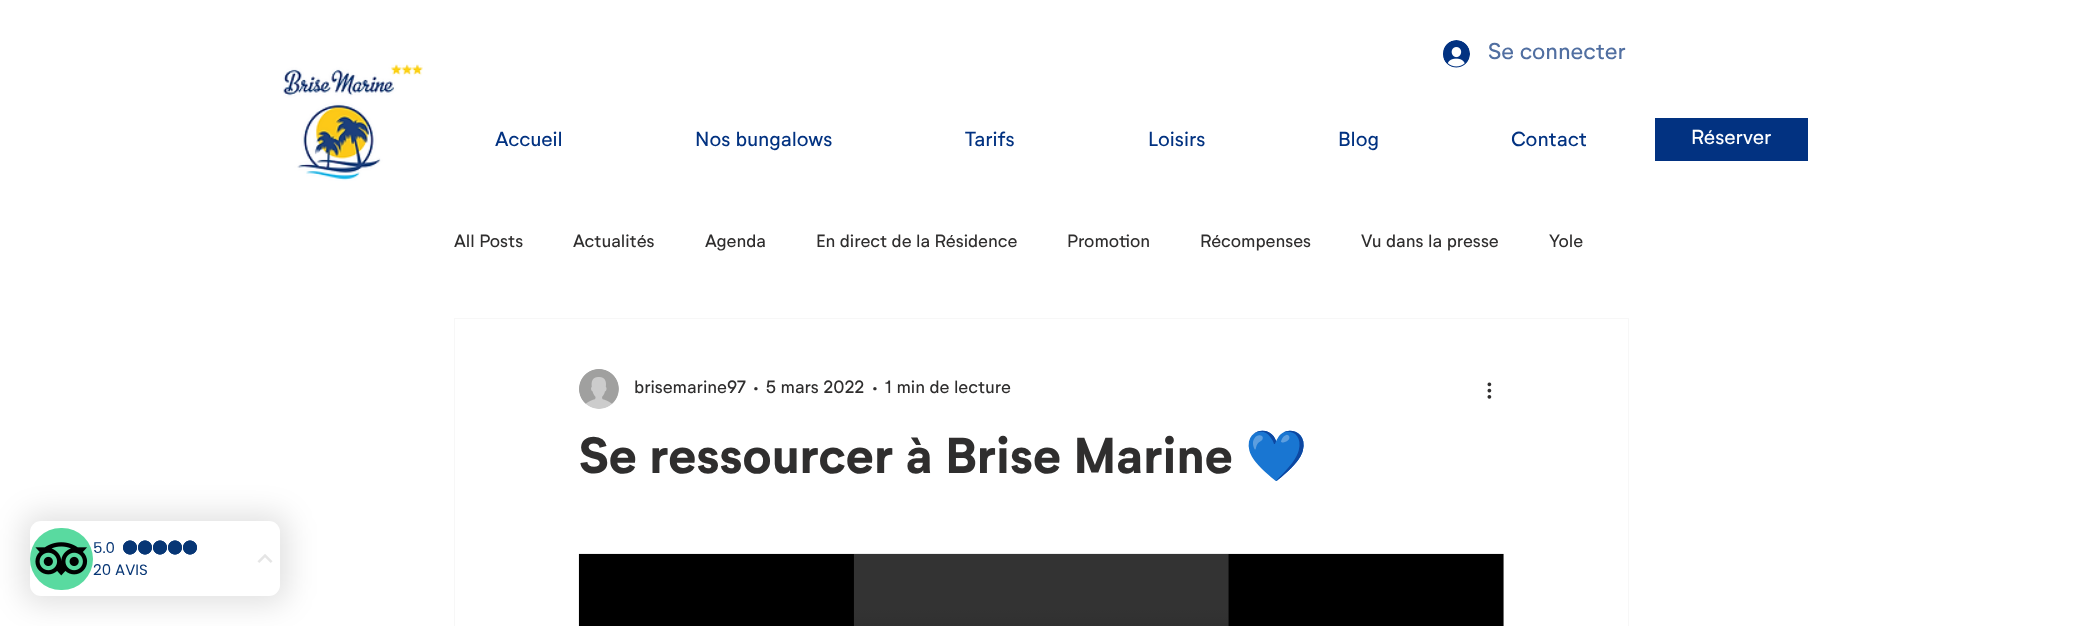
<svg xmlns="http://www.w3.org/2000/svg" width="2082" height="626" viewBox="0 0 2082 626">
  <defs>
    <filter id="blur1" x="-50%" y="-200%" width="200%" height="500%"><feGaussianBlur stdDeviation="15"/></filter>
  </defs>
  <rect width="100%" height="100%" fill="#ffffff"/>
  <image x="1443" y="40" width="27" height="28" href="img1.png"/>
  <text x="1488" y="59" font-family="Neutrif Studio" font-size="22.5" fill="#516fa1">Se connecter</text>
  <image x="283" y="64" width="140" height="117" href="img2.png"/>
  <text x="495" y="146" font-family="Neutrif Studio" font-size="20" fill="#023281">Accueil</text>
  <text x="695" y="146" font-family="Neutrif Studio" font-size="20" fill="#023281">Nos bungalows</text>
  <text x="965" y="146" font-family="Neutrif Studio" font-size="20" fill="#023281">Tarifs</text>
  <text x="1148" y="146" font-family="Neutrif Studio" font-size="20" fill="#023281">Loisirs</text>
  <text x="1338" y="146" font-family="Neutrif Studio" font-size="20" fill="#023281">Blog</text>
  <text x="1511" y="146" font-family="Neutrif Studio" font-size="20" fill="#023281">Contact</text>
  <rect x="1655" y="118" width="153" height="43" fill="#023281"/>
  <text x="1691" y="144" font-family="Neutrif Studio" font-size="20" fill="#ffffff">Réserver</text>
  <text x="454" y="247" font-family="Neutrif Studio" font-size="17.5" fill="#2f2e2e">All Posts</text>
  <text x="573" y="247" font-family="Neutrif Studio" font-size="17.5" fill="#2f2e2e">Actualités</text>
  <text x="705" y="247" font-family="Neutrif Studio" font-size="17.5" fill="#2f2e2e">Agenda</text>
  <text x="816" y="247" font-family="Neutrif Studio" font-size="17.5" fill="#2f2e2e">En direct de la Résidence</text>
  <text x="1067" y="247" font-family="Neutrif Studio" font-size="17.5" fill="#2f2e2e">Promotion</text>
  <text x="1200" y="247" font-family="Neutrif Studio" font-size="17.5" fill="#2f2e2e">Récompenses</text>
  <text x="1361" y="247" font-family="Neutrif Studio" font-size="17.5" fill="#2f2e2e">Vu dans la presse</text>
  <text x="1549" y="247" font-family="Neutrif Studio" font-size="17.5" fill="#2f2e2e">Yole</text>
  <rect x="454.5" y="318.5" width="1174" height="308" fill="none" stroke="#f7f7f7"/>
  <image x="579" y="369" width="40" height="40" href="img3.png"/>
  <text x="634" y="393" font-family="Neutrif Studio" font-size="17.5" fill="#2f2e2e">brisemarine97</text>
  <text x="753" y="393" font-family="Neutrif Studio" font-size="17.5" fill="#2f2e2e">·</text>
  <text x="766" y="393" font-family="Neutrif Studio" font-size="17.5" fill="#2f2e2e">5 mars 2022</text>
  <text x="872" y="393" font-family="Neutrif Studio" font-size="17.5" fill="#2f2e2e">·</text>
  <text x="885" y="393" font-family="Neutrif Studio" font-size="17.5" fill="#2f2e2e">1 min de lecture</text>
  <image x="1487" y="382" width="5" height="17" href="img4.png"/>
  <text x="579" y="473" font-family="Neutrif Studio" font-size="50" font-weight="bold" fill="#2f2e2e">Se ressourcer à Brise Marine</text>
  <text x="1245" y="473" font-family="Noto Color Emoji" font-size="50" font-weight="bold" fill="#2f2e2e">💙</text>
  <image x="578" y="553" width="926" height="73" href="img5.png"/>
  <rect x="23" y="514" width="265" height="90" rx="15" fill="#000000" fill-opacity="0.12" filter="url(#blur1)"/>
  <rect x="30" y="521" width="250" height="75" rx="11" fill="#ffffff"/>
  <rect x="30" y="528" width="63" height="62" rx="31" fill="#59daa0"/>
  <image x="35" y="542" width="53" height="34" href="img6.png"/>
  <text x="93" y="553" font-family="Poppins" font-size="15" fill="#073675">5.0</text>
  <circle cx="130" cy="547.5" r="6.5" fill="none" stroke="#2f568b" stroke-width="0.9"/>
  <image x="123" y="540" width="14" height="15" href="img7.png"/>
  <circle cx="145" cy="547.5" r="6.5" fill="none" stroke="#2f568b" stroke-width="0.9"/>
  <image x="138" y="540" width="14" height="15" href="img7.png"/>
  <circle cx="160" cy="547.5" r="6.5" fill="none" stroke="#2f568b" stroke-width="0.9"/>
  <image x="153" y="540" width="14" height="15" href="img7.png"/>
  <circle cx="175" cy="547.5" r="6.5" fill="none" stroke="#2f568b" stroke-width="0.9"/>
  <image x="168" y="540" width="14" height="15" href="img7.png"/>
  <circle cx="190" cy="547.5" r="6.5" fill="none" stroke="#2f568b" stroke-width="0.9"/>
  <image x="183" y="540" width="14" height="15" href="img7.png"/>
  <text x="93" y="575" font-family="Poppins" font-size="15" fill="#073675">20 AVIS</text>
  <image x="257" y="554" width="16" height="9" href="img8.png"/>
</svg>
